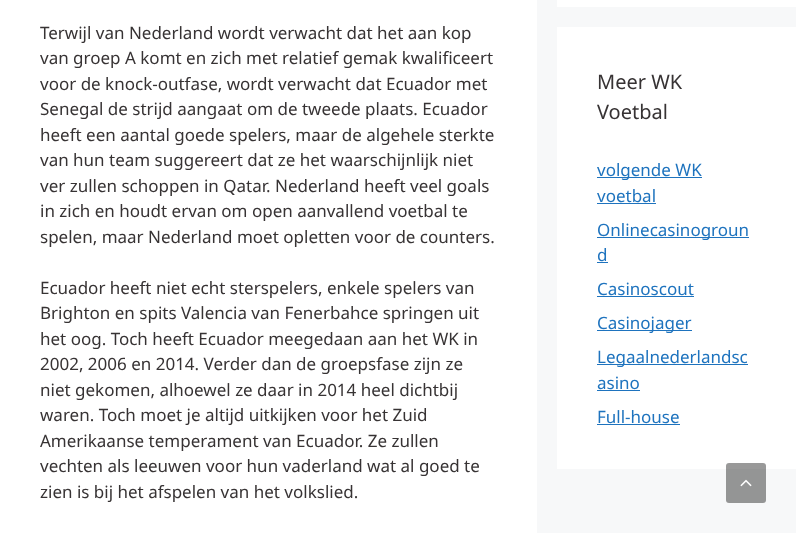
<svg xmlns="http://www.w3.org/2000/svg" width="796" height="533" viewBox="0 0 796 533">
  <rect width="100%" height="100%" fill="#f7f8f9"/>
  <rect x="0" y="0" width="537" height="533" fill="#ffffff"/>
  <text x="40" y="39" font-family="Noto Sans" font-size="17" fill="#373334">Terwijl van Nederland wordt verwacht dat het aan kop</text>
  <text x="40" y="64" font-family="Noto Sans" font-size="17" fill="#373334">van groep A komt en zich met relatief gemak kwalificeert</text>
  <text x="40" y="90" font-family="Noto Sans" font-size="17" fill="#373334">voor de knock-outfase, wordt verwacht dat Ecuador met</text>
  <text x="40" y="115" font-family="Noto Sans" font-size="17" fill="#373334">Senegal de strijd aangaat om de tweede plaats. Ecuador</text>
  <text x="40" y="141" font-family="Noto Sans" font-size="17" fill="#373334">heeft een aantal goede spelers, maar de algehele sterkte</text>
  <text x="40" y="166" font-family="Noto Sans" font-size="17" fill="#373334">van hun team suggereert dat ze het waarschijnlijk niet</text>
  <text x="40" y="192" font-family="Noto Sans" font-size="17" fill="#373334">ver zullen schoppen in Qatar. Nederland heeft veel goals</text>
  <text x="40" y="217" font-family="Noto Sans" font-size="17" fill="#373334">in zich en houdt ervan om open aanvallend voetbal te</text>
  <text x="40" y="243" font-family="Noto Sans" font-size="17" fill="#373334">spelen, maar Nederland moet opletten voor de counters.</text>
  <text x="40" y="294" font-family="Noto Sans" font-size="17" fill="#373334">Ecuador heeft niet echt sterspelers, enkele spelers van</text>
  <text x="40" y="319" font-family="Noto Sans" font-size="17" fill="#373334">Brighton en spits Valencia van Fenerbahce springen uit</text>
  <text x="40" y="345" font-family="Noto Sans" font-size="17" fill="#373334">het oog. Toch heeft Ecuador meegedaan aan het WK in</text>
  <text x="40" y="370" font-family="Noto Sans" font-size="17" fill="#373334">2002, 2006 en 2014. Verder dan de groepsfase zijn ze</text>
  <text x="40" y="396" font-family="Noto Sans" font-size="17" fill="#373334">niet gekomen, alhoewel ze daar in 2014 heel dichtbij</text>
  <text x="40" y="421" font-family="Noto Sans" font-size="17" fill="#373334">waren. Toch moet je altijd uitkijken voor het Zuid</text>
  <text x="40" y="447" font-family="Noto Sans" font-size="17" fill="#373334">Amerikaanse temperament van Ecuador. Ze zullen</text>
  <text x="40" y="472" font-family="Noto Sans" font-size="17" fill="#373334">vechten als leeuwen voor hun vaderland wat al goed te</text>
  <text x="40" y="498" font-family="Noto Sans" font-size="17" fill="#373334">zien is bij het afspelen van het volkslied.</text>
  <rect x="557" y="0" width="239" height="7" fill="#ffffff"/>
  <rect x="557" y="27" width="239" height="442" fill="#ffffff"/>
  <text x="597" y="89" font-family="Noto Sans" font-size="20" fill="#373334">Meer WK</text>
  <text x="597" y="119" font-family="Noto Sans" font-size="20" fill="#373334">Voetbal</text>
  <rect x="597" y="177" width="105" height="1" fill="#1e73be"/>
  <text x="597" y="176" font-family="Noto Sans" font-size="17" fill="#1e73be">volgende WK</text>
  <text x="597" y="202" font-family="Noto Sans" font-size="17" fill="#1e73be">voetbal</text>
  <rect x="597" y="203" width="59" height="1" fill="#1e73be"/>
  <rect x="597" y="237" width="152" height="1" fill="#1e73be"/>
  <text x="597" y="236" font-family="Noto Sans" font-size="17" fill="#1e73be">Onlinecasinogroun</text>
  <text x="597" y="261" font-family="Noto Sans" font-size="17" fill="#1e73be">d</text>
  <rect x="597" y="262" width="11" height="1" fill="#1e73be"/>
  <text x="597" y="295" font-family="Noto Sans" font-size="17" fill="#1e73be">Casinoscout</text>
  <rect x="597" y="296" width="97" height="1" fill="#1e73be"/>
  <rect x="597" y="330" width="95" height="1" fill="#1e73be"/>
  <text x="597" y="329" font-family="Noto Sans" font-size="17" fill="#1e73be">Casinojager</text>
  <rect x="597" y="364" width="151" height="1" fill="#1e73be"/>
  <text x="597" y="363" font-family="Noto Sans" font-size="17" fill="#1e73be">Legaalnederlandsc</text>
  <text x="597" y="389" font-family="Noto Sans" font-size="17" fill="#1e73be">asino</text>
  <rect x="597" y="390" width="43" height="1" fill="#1e73be"/>
  <text x="597" y="423" font-family="Noto Sans" font-size="17" fill="#1e73be">Full-house</text>
  <rect x="597" y="424" width="83" height="1" fill="#1e73be"/>
  <rect x="726" y="463" width="40" height="40" rx="3" fill="#000000" fill-opacity="0.4"/>
  <image x="740" y="479" width="12" height="8" href="img1.png"/>
</svg>
